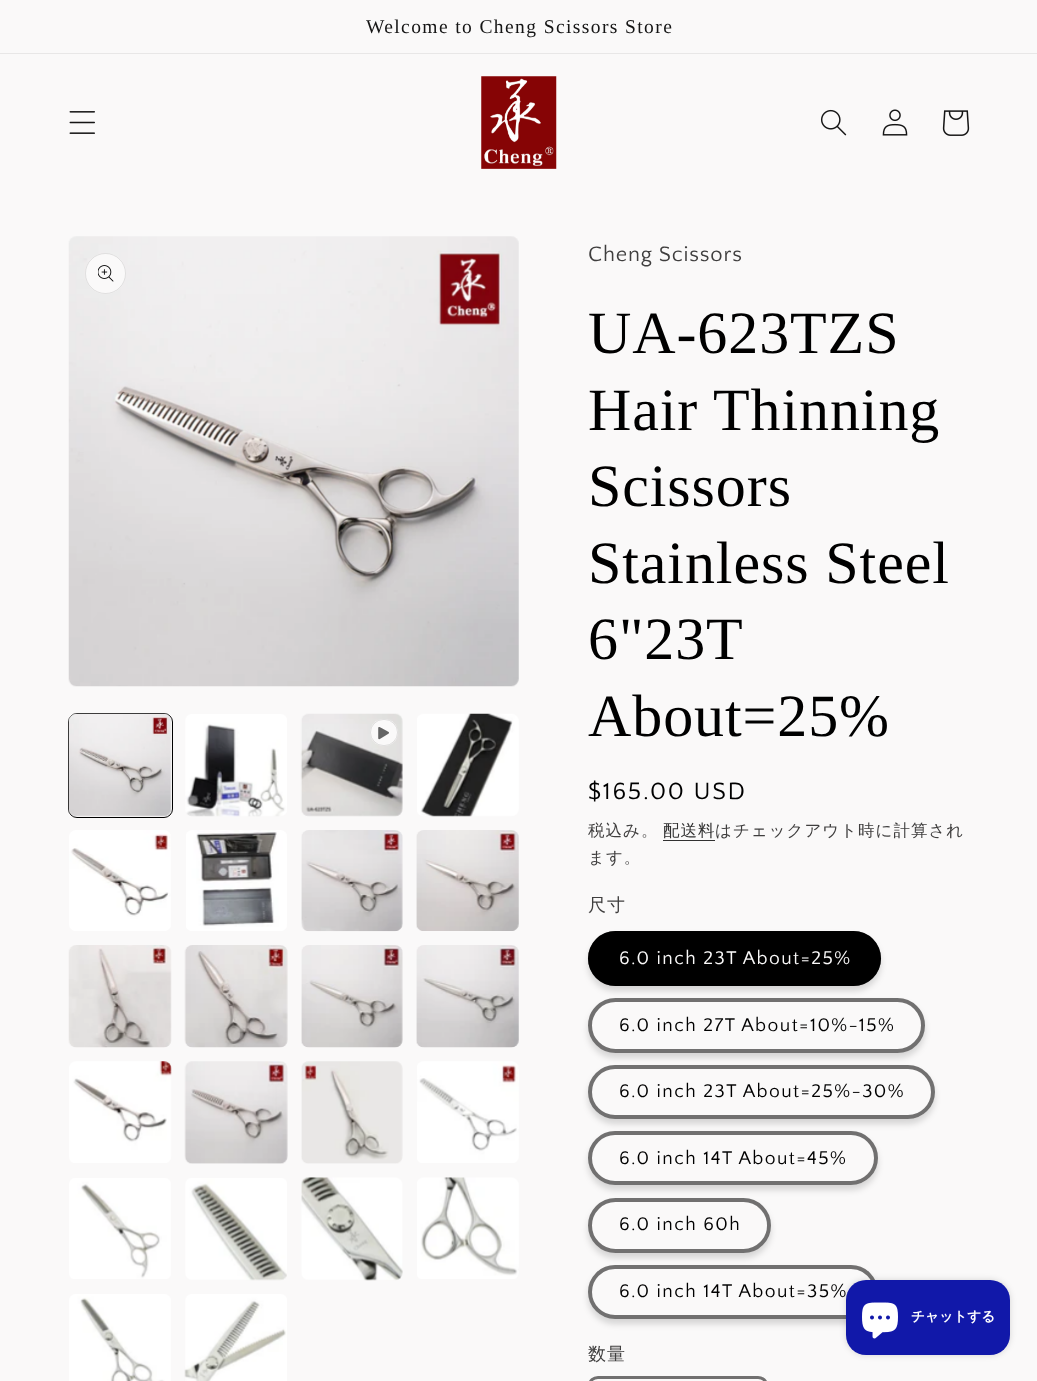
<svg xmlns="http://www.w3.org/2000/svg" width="1037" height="1381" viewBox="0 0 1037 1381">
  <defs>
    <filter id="blur1" x="-50%" y="-200%" width="200%" height="500%"><feGaussianBlur stdDeviation="3"/></filter>
  </defs>
  <rect width="100%" height="100%" fill="#faf9f9"/>
  <rect x="0" y="53" width="1037" height="1" fill="#e8e7e7"/>
  <text x="366" y="33" font-family="Liberation Serif" font-size="19.5" letter-spacing="1.4" fill="#151515">Welcome to Cheng Scissors Store</text>
  <image x="69" y="111" width="26" height="23" href="img1.png"/>
  <image x="481" y="76" width="76" height="93" href="img2.png"/>
  <image x="820" y="109" width="27" height="27" href="img3.png"/>
  <image x="882" y="109" width="26" height="27" href="img4.png"/>
  <image x="942" y="110" width="28" height="26" href="img5.png"/>
  <image x="68" y="236" width="451" height="451" href="img6.png"/>
  <circle cx="105.5" cy="273.5" r="20.5" fill="#faf9f9"/>
  <circle cx="105.5" cy="273.5" r="20" fill="none" stroke="#000000" stroke-opacity="0.1"/>
  <image x="98" y="265" width="16" height="17" href="img7.png"/>
  <rect x="68.5" y="713.5" width="104" height="104" rx="8.5" fill="none" stroke="#000000"/>
  <image x="68" y="713" width="104" height="104" href="img8.png"/>
  <image x="185" y="714" width="102" height="103" href="img9.png"/>
  <image x="300" y="713" width="103" height="104" href="img10.png"/>
  <rect x="370" y="719" width="28" height="27" rx="13.5" fill="#faf9f9"/>
  <rect x="370.5" y="719.5" width="27" height="26" rx="13" fill="none" stroke="#000000" stroke-opacity="0.1"/>
  <image x="378" y="727" width="11" height="13" href="img11.png"/>
  <image x="417" y="713" width="102" height="104" href="img12.png"/>
  <image x="69" y="830" width="102" height="101" href="img13.png"/>
  <image x="186" y="830" width="101" height="101" href="img14.png"/>
  <image x="301" y="830" width="102" height="102" href="img15.png"/>
  <image x="416" y="830" width="103" height="101" href="img16.png"/>
  <image x="68" y="945" width="104" height="103" href="img17.png"/>
  <image x="184" y="945" width="104" height="103" href="img18.png"/>
  <image x="301" y="945" width="102" height="103" href="img19.png"/>
  <image x="416" y="945" width="103" height="103" href="img20.png"/>
  <image x="69" y="1061" width="103" height="102" href="img21.png"/>
  <image x="184" y="1061" width="104" height="103" href="img22.png"/>
  <image x="301" y="1061" width="102" height="103" href="img23.png"/>
  <image x="417" y="1061" width="102" height="102" href="img24.png"/>
  <image x="69" y="1178" width="102" height="101" href="img25.png"/>
  <image x="185" y="1178" width="102" height="103" href="img26.png"/>
  <image x="301" y="1177" width="102" height="104" href="img27.png"/>
  <image x="417" y="1177" width="102" height="102" href="img28.png"/>
  <image x="69" y="1294" width="102" height="87" href="img29.png"/>
  <image x="184" y="1294" width="103" height="87" href="img30.png"/>
  <text x="588" y="261" font-family="Quattrocento Sans" font-size="22" letter-spacing="0.8" fill="#3f3e3e">Cheng Scissors</text>
  <text x="588" y="353" font-family="Liberation Serif" font-size="60" letter-spacing="0.9" fill="#000000">UA-623TZS</text>
  <text x="588" y="430" font-family="Liberation Serif" font-size="60" letter-spacing="0.9" fill="#000000">Hair Thinning</text>
  <text x="588" y="506" font-family="Liberation Serif" font-size="60" letter-spacing="0.9" fill="#000000">Scissors</text>
  <text x="588" y="583" font-family="Liberation Serif" font-size="60" letter-spacing="0.9" fill="#000000">Stainless Steel</text>
  <text x="588" y="659" font-family="Liberation Serif" font-size="60" letter-spacing="0.9" fill="#000000">6"23T</text>
  <text x="588" y="736" font-family="Liberation Serif" font-size="60" letter-spacing="0.9" fill="#000000">About=25%</text>
  <text x="588" y="799" font-family="Quattrocento Sans" font-size="24.75" letter-spacing="1.75" fill="#000000">$165.00 USD</text>
  <text x="588" y="836" font-family="WenQuanYi Zen Hei" font-size="16.5" font-weight="500" letter-spacing="1" fill="#3f3e3e">税込み。</text>
  <text x="663" y="836" font-family="WenQuanYi Zen Hei" font-size="16.5" font-weight="500" letter-spacing="1" fill="#313131">配送料</text>
  <rect x="663" y="840" width="52" height="1" fill="#313131"/>
  <text x="715" y="836" font-family="WenQuanYi Zen Hei" font-size="16.5" font-weight="500" letter-spacing="1" fill="#3f3e3e">はチェックアウト時に計算され</text>
  <text x="588" y="863" font-family="WenQuanYi Zen Hei" font-size="16.5" font-weight="500" letter-spacing="1" fill="#3f3e3e">ます。</text>
  <text x="588" y="911" font-family="WenQuanYi Zen Hei" font-size="18" font-weight="500" letter-spacing="1" fill="#3f3e3e">尺寸</text>
  <rect x="588" y="936" width="293" height="55" rx="27.5" fill="#000000" fill-opacity="0.15" filter="url(#blur1)"/>
  <rect x="588" y="931" width="293" height="55" rx="27.5" fill="#000000"/>
  <rect x="590" y="933" width="289" height="51" rx="25.5" fill="none" stroke="#000000" stroke-opacity="0.55" stroke-width="4"/>
  <text x="619" y="964" font-family="Quattrocento Sans" font-size="19.25" letter-spacing="1.4" fill="#faf9f9">6.0 inch 23T About=25%</text>
  <rect x="588" y="1003" width="337" height="55" rx="27.5" fill="#000000" fill-opacity="0.15" filter="url(#blur1)"/>
  <rect x="588" y="998" width="337" height="55" rx="27.5" fill="#faf9f9"/>
  <rect x="590" y="1000" width="333" height="51" rx="25.5" fill="none" stroke="#000000" stroke-opacity="0.55" stroke-width="4"/>
  <text x="619" y="1031" font-family="Quattrocento Sans" font-size="19.25" letter-spacing="1.4" fill="#000000">6.0 inch 27T About=10%-15%</text>
  <rect x="588" y="1070" width="347" height="54" rx="27" fill="#000000" fill-opacity="0.15" filter="url(#blur1)"/>
  <rect x="588" y="1065" width="347" height="54" rx="27" fill="#faf9f9"/>
  <rect x="590" y="1067" width="343" height="50" rx="25" fill="none" stroke="#000000" stroke-opacity="0.55" stroke-width="4"/>
  <text x="619" y="1097" font-family="Quattrocento Sans" font-size="19.25" letter-spacing="1.4" fill="#000000">6.0 inch 23T About=25%-30%</text>
  <rect x="588" y="1136" width="290" height="54" rx="27" fill="#000000" fill-opacity="0.15" filter="url(#blur1)"/>
  <rect x="588" y="1131" width="290" height="54" rx="27" fill="#faf9f9"/>
  <rect x="590" y="1133" width="286" height="50" rx="25" fill="none" stroke="#000000" stroke-opacity="0.55" stroke-width="4"/>
  <text x="619" y="1164" font-family="Quattrocento Sans" font-size="19.25" letter-spacing="1.4" fill="#000000">6.0 inch 14T About=45%</text>
  <rect x="588" y="1203" width="183" height="55" rx="27.5" fill="#000000" fill-opacity="0.15" filter="url(#blur1)"/>
  <rect x="588" y="1198" width="183" height="55" rx="27.5" fill="#faf9f9"/>
  <rect x="590" y="1200" width="179" height="51" rx="25.5" fill="none" stroke="#000000" stroke-opacity="0.55" stroke-width="4"/>
  <text x="619" y="1230" font-family="Quattrocento Sans" font-size="19.25" letter-spacing="1.4" fill="#000000">6.0 inch 60h</text>
  <rect x="588" y="1270" width="290" height="54" rx="27" fill="#000000" fill-opacity="0.15" filter="url(#blur1)"/>
  <rect x="588" y="1265" width="290" height="54" rx="27" fill="#faf9f9"/>
  <rect x="590" y="1267" width="286" height="50" rx="25" fill="none" stroke="#000000" stroke-opacity="0.55" stroke-width="4"/>
  <text x="619" y="1297" font-family="Quattrocento Sans" font-size="19.25" letter-spacing="1.4" fill="#000000">6.0 inch 14T About=35%</text>
  <text x="588" y="1360" font-family="WenQuanYi Zen Hei" font-size="18" font-weight="500" letter-spacing="1" fill="#3f3e3e">数量</text>
  <rect x="589.5" y="1377.5" width="177" height="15" rx="8.5" fill="none" stroke="#717070" stroke-width="3"/>
  <rect x="846" y="1280" width="164" height="75" rx="20" fill="#000000" fill-opacity="0.15" filter="url(#blur1)"/>
  <rect x="846" y="1280" width="164" height="75" rx="20" fill="#1118a9"/>
  <image x="862" y="1302" width="36" height="37" href="img31.png"/>
  <text x="911" y="1321" font-family="WenQuanYi Zen Hei" font-size="13.75" font-weight="bold" fill="#ffffff">チャットする</text>
</svg>
